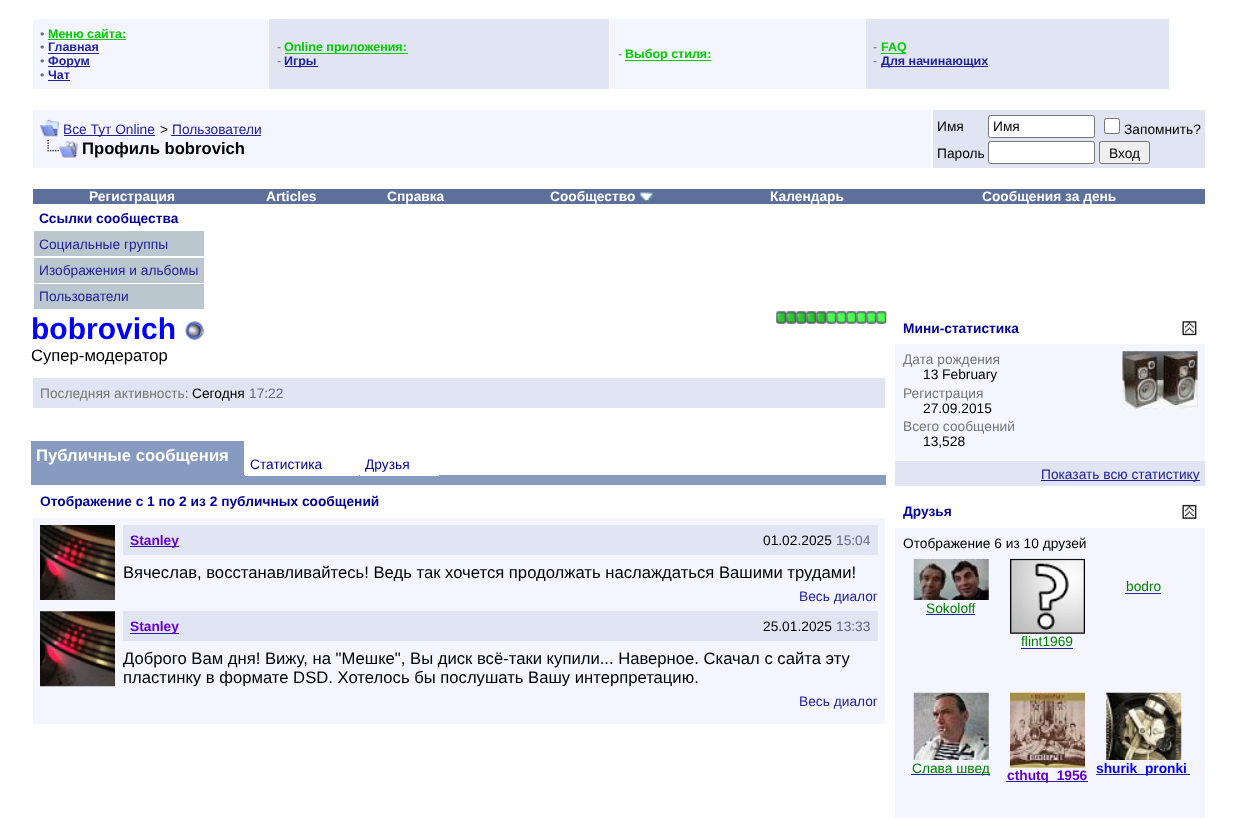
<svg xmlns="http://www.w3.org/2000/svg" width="1237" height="818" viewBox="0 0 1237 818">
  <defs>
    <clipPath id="clip1"><rect x="123" y="563" width="755" height="18"/></clipPath>
    <clipPath id="clip2"><rect x="123" y="649" width="755" height="37"/></clipPath>
  </defs>
  <rect width="100%" height="100%" fill="#ffffff"/>
  <rect x="33" y="19" width="235" height="70" fill="#f5f5ff"/>
  <text x="40" y="38" font-family="Liberation Sans" font-size="12.5" fill="#6f6f6f">•</text>
  <text x="48" y="38" font-family="Liberation Sans" font-size="12.5" font-weight="bold" fill="#00cc00">Меню сайта:</text>
  <rect x="48" y="39" width="78" height="1" fill="#00cc00"/>
  <text x="40" y="51" font-family="Liberation Sans" font-size="12.5" fill="#6f6f6f">•</text>
  <text x="48" y="51" font-family="Liberation Sans" font-size="12.5" font-weight="bold" fill="#22229c">Главная</text>
  <rect x="48" y="53" width="51" height="1" fill="#22229c"/>
  <text x="40" y="65" font-family="Liberation Sans" font-size="12.5" fill="#6f6f6f">•</text>
  <rect x="48" y="66" width="42" height="1" fill="#22229c"/>
  <text x="48" y="65" font-family="Liberation Sans" font-size="12.5" font-weight="bold" fill="#22229c">Форум</text>
  <text x="40" y="79" font-family="Liberation Sans" font-size="12.5" fill="#6f6f6f">•</text>
  <text x="48" y="79" font-family="Liberation Sans" font-size="12.5" font-weight="bold" fill="#22229c">Чат</text>
  <rect x="48" y="80" width="22" height="1" fill="#22229c"/>
  <rect x="269" y="19" width="340" height="70" fill="#e1e4f2"/>
  <text x="277" y="51" font-family="Liberation Sans" font-size="12.5" fill="#6f6f6f">-</text>
  <rect x="285" y="53" width="123" height="1" fill="#00cc00"/>
  <text x="284" y="51" font-family="Liberation Sans" font-size="12.5" font-weight="bold" fill="#00cc00">Online приложения:</text>
  <text x="277" y="65" font-family="Liberation Sans" font-size="12.5" fill="#6f6f6f">-</text>
  <rect x="285" y="66" width="33" height="1" fill="#22229c"/>
  <text x="284" y="65" font-family="Liberation Sans" font-size="12.5" font-weight="bold" fill="#22229c">Игры</text>
  <rect x="610" y="19" width="255" height="70" fill="#f5f5ff"/>
  <text x="618" y="58" font-family="Liberation Sans" font-size="12.5" fill="#6f6f6f">-</text>
  <rect x="625" y="60" width="86" height="1" fill="#00cc00"/>
  <text x="625" y="58" font-family="Liberation Sans" font-size="12.5" font-weight="bold" fill="#00cc00">Выбор стиля:</text>
  <rect x="866" y="19" width="303" height="70" fill="#e1e4f2"/>
  <text x="873" y="51" font-family="Liberation Sans" font-size="12.5" fill="#6f6f6f">-</text>
  <rect x="881" y="53" width="25" height="1" fill="#00cc00"/>
  <text x="881" y="51" font-family="Liberation Sans" font-size="12.5" font-weight="bold" fill="#00cc00">FAQ</text>
  <text x="873" y="65" font-family="Liberation Sans" font-size="12.5" fill="#6f6f6f">-</text>
  <rect x="881" y="66" width="107" height="1" fill="#22229c"/>
  <text x="881" y="65" font-family="Liberation Sans" font-size="12.5" font-weight="bold" fill="#22229c">Для начинающих</text>
  <rect x="33" y="110" width="898" height="58" fill="#f5f5ff"/>
  <image x="40" y="119" width="19" height="18" href="img1.png"/>
  <rect x="64" y="135" width="91" height="1" fill="#22229c"/>
  <text x="63" y="134" font-family="Liberation Sans" font-size="13.75" fill="#22229c">Все Тут Online</text>
  <text x="160" y="134" font-family="Liberation Sans" font-size="13.75" fill="#000000">&gt;</text>
  <text x="172" y="134" font-family="Liberation Sans" font-size="13.75" fill="#22229c">Пользователи</text>
  <rect x="171" y="135" width="90" height="1" fill="#22229c"/>
  <image x="47" y="140" width="31" height="18" href="img2.png"/>
  <text x="82" y="154" font-family="Liberation Sans" font-size="16.65" font-weight="bold" fill="#000000">Профиль bobrovich</text>
  <rect x="933" y="110" width="272" height="58" fill="#e1e4f2"/>
  <text x="937" y="131" font-family="Liberation Sans" font-size="13.75" fill="#000000">Имя</text>
  <rect x="988.5" y="115.5" width="106" height="22" rx="2" fill="#ffffff" stroke="#767676"/>
  <text x="993" y="131" font-family="Liberation Sans" font-size="13.75" fill="#000000">Имя</text>
  <rect x="1104.5" y="118.5" width="15" height="15" rx="2" fill="#ffffff" stroke="#767676"/>
  <text x="1124" y="134" font-family="Liberation Sans" font-size="13.75" fill="#000000">Запомнить?</text>
  <text x="937" y="158" font-family="Liberation Sans" font-size="13.75" fill="#000000">Пароль</text>
  <rect x="988.5" y="141.5" width="106" height="22" rx="2" fill="#ffffff" stroke="#767676"/>
  <rect x="1099.5" y="141.5" width="50" height="22" rx="2" fill="#efefef" stroke="#767676"/>
  <text x="1109" y="158" font-family="Liberation Sans" font-size="13.75" fill="#000000">Вход</text>
  <rect x="33" y="189" width="1172" height="15" fill="#5c7099"/>
  <text x="89" y="201" font-family="Liberation Sans" font-size="13.75" font-weight="bold" fill="#ffffff">Регистрация</text>
  <text x="266" y="201" font-family="Liberation Sans" font-size="13.75" font-weight="bold" fill="#ffffff">Articles</text>
  <text x="387" y="201" font-family="Liberation Sans" font-size="13.75" font-weight="bold" fill="#ffffff">Справка</text>
  <text x="550" y="201" font-family="Liberation Sans" font-size="13.75" font-weight="bold" fill="#ffffff">Сообщество</text>
  <image x="640" y="192" width="14" height="10" href="img3.png"/>
  <text x="770" y="201" font-family="Liberation Sans" font-size="13.75" font-weight="bold" fill="#ffffff">Календарь</text>
  <text x="982" y="201" font-family="Liberation Sans" font-size="13.75" font-weight="bold" fill="#ffffff">Сообщения за день</text>
  <text x="39" y="223" font-family="Liberation Sans" font-size="13.75" font-weight="bold" fill="#000099">Ссылки сообщества</text>
  <rect x="34" y="231" width="170" height="25" fill="#bbc7ce"/>
  <text x="39" y="249" font-family="Liberation Sans" font-size="13.75" fill="#22229c">Социальные группы</text>
  <rect x="34" y="258" width="170" height="25" fill="#bbc7ce"/>
  <text x="39" y="275" font-family="Liberation Sans" font-size="13.75" fill="#22229c">Изображения и альбомы</text>
  <rect x="34" y="284" width="170" height="25" fill="#bbc7ce"/>
  <text x="39" y="301" font-family="Liberation Sans" font-size="13.75" fill="#22229c">Пользователи</text>
  <text x="31" y="339" font-family="Liberation Sans" font-size="30" font-weight="bold" fill="#0000ff">bobrovich</text>
  <image x="185" y="321" width="19" height="19" href="img4.png"/>
  <image x="776" y="311" width="11" height="13" href="img5.png"/>
  <image x="786" y="311" width="11" height="13" href="img6.png"/>
  <image x="796" y="311" width="11" height="13" href="img6.png"/>
  <image x="806" y="311" width="11" height="13" href="img6.png"/>
  <image x="816" y="311" width="11" height="13" href="img6.png"/>
  <image x="826" y="311" width="11" height="13" href="img7.png"/>
  <image x="836" y="311" width="11" height="13" href="img8.png"/>
  <image x="846" y="311" width="11" height="13" href="img8.png"/>
  <image x="856" y="311" width="11" height="13" href="img8.png"/>
  <image x="866" y="311" width="11" height="13" href="img8.png"/>
  <image x="876" y="311" width="11" height="13" href="img8.png"/>
  <text x="31" y="361" font-family="Liberation Sans" font-size="16.65" fill="#000000">Супер-модератор</text>
  <rect x="33" y="378" width="852" height="30" fill="#e1e4f2"/>
  <text x="40" y="398" font-family="Liberation Sans" font-size="13.75" fill="#777777">Последняя активность:</text>
  <text x="192" y="398" font-family="Liberation Sans" font-size="13.75" fill="#000000">Сегодня</text>
  <text x="249" y="398" font-family="Liberation Sans" font-size="13.75" fill="#666686">17:22</text>
  <rect x="31" y="441" width="213" height="34" fill="#869bbf"/>
  <text x="36" y="461" font-family="Liberation Sans" font-size="16.65" font-weight="bold" fill="#ffffff">Публичные сообщения</text>
  <rect x="31" y="475" width="855" height="10" fill="#869bbf"/>
  <rect x="245" y="475" width="114" height="1" fill="#ffffff"/>
  <text x="250" y="469" font-family="Liberation Sans" font-size="13.75" fill="#000099">Статистика</text>
  <rect x="360" y="475" width="79" height="1" fill="#ffffff"/>
  <text x="365" y="469" font-family="Liberation Sans" font-size="13.75" fill="#000099">Друзья</text>
  <text x="40" y="506" font-family="Liberation Sans" font-size="13.75" font-weight="bold" fill="#000099">Отображение с 1 по 2 из 2 публичных сообщений</text>
  <rect x="33" y="518" width="852" height="206" fill="#f5f5ff"/>
  <image x="40" y="525" width="75" height="75" href="img9.png"/>
  <rect x="123" y="525" width="755" height="30" fill="#e1e4f2"/>
  <rect x="130" y="546" width="49" height="1" fill="#22229c"/>
  <text x="130" y="545" font-family="Liberation Sans" font-size="13.75" font-weight="bold" fill="#6600cc">Stanley</text>
  <text x="763" y="545" font-family="Liberation Sans" font-size="13.75" fill="#000000">01.02.2025</text>
  <text x="836" y="545" font-family="Liberation Sans" font-size="13.75" fill="#666686">15:04</text>
  <g clip-path="url(#clip1)">
    <text x="123" y="578" font-family="Liberation Sans" font-size="16.65" fill="#000000">Вячеслав, восстанавливайтесь! Ведь так хочется продолжать наслаждаться Вашими трудами!</text>
  </g>
  <text x="799" y="601" font-family="Liberation Sans" font-size="13.75" fill="#22229c">Весь диалог</text>
  <image x="40" y="611" width="75" height="76" href="img10.png"/>
  <rect x="123" y="611" width="755" height="30" fill="#e1e4f2"/>
  <rect x="130" y="633" width="49" height="1" fill="#22229c"/>
  <text x="130" y="631" font-family="Liberation Sans" font-size="13.75" font-weight="bold" fill="#6600cc">Stanley</text>
  <text x="763" y="631" font-family="Liberation Sans" font-size="13.75" fill="#000000">25.01.2025</text>
  <text x="836" y="631" font-family="Liberation Sans" font-size="13.75" fill="#666686">13:33</text>
  <g clip-path="url(#clip2)">
    <text x="123" y="664" font-family="Liberation Sans" font-size="16.65" fill="#000000">Доброго Вам дня! Вижу, на "Мешке", Вы диск всё-таки купили... Наверное. Скачал с сайта эту</text>
    <text x="123" y="683" font-family="Liberation Sans" font-size="16.65" fill="#000000">пластинку в формате DSD. Хотелось бы послушать Вашу интерпретацию.</text>
  </g>
  <text x="799" y="706" font-family="Liberation Sans" font-size="13.75" fill="#22229c">Весь диалог</text>
  <text x="903" y="333" font-family="Liberation Sans" font-size="13.75" font-weight="bold" fill="#000099">Мини-статистика</text>
  <image x="1182" y="321" width="15" height="15" href="img11.png"/>
  <rect x="895" y="344" width="310" height="116" fill="#f5f5ff"/>
  <text x="903" y="364" font-family="Liberation Sans" font-size="13.75" fill="#777777">Дата рождения</text>
  <text x="923" y="379" font-family="Liberation Sans" font-size="13.75" fill="#000000">13 February</text>
  <text x="903" y="398" font-family="Liberation Sans" font-size="13.75" fill="#777777">Регистрация</text>
  <text x="923" y="413" font-family="Liberation Sans" font-size="13.75" fill="#000000">27.09.2015</text>
  <text x="903" y="431" font-family="Liberation Sans" font-size="13.75" fill="#777777">Всего сообщений</text>
  <text x="923" y="446" font-family="Liberation Sans" font-size="13.75" fill="#000000">13,528</text>
  <rect x="1123" y="351" width="75" height="58" fill="#e1e4f2"/>
  <image x="1122" y="351" width="76" height="58" href="img12.png"/>
  <rect x="895" y="461" width="310" height="25" fill="#e1e4f2"/>
  <rect x="1041" y="480" width="159" height="1" fill="#22229c"/>
  <text x="1041" y="479" font-family="Liberation Sans" font-size="13.75" fill="#22229c">Показать всю статистику</text>
  <text x="903" y="516" font-family="Liberation Sans" font-size="13.75" font-weight="bold" fill="#000099">Друзья</text>
  <image x="1182" y="504" width="15" height="15" href="img13.png"/>
  <rect x="895" y="528" width="310" height="290" fill="#f5f5ff"/>
  <text x="903" y="548" font-family="Liberation Sans" font-size="13.75" fill="#000000">Отображение 6 из 10 друзей</text>
  <text x="1126" y="591" font-family="Liberation Sans" font-size="13.75" fill="#008000">bodro</text>
  <rect x="1125" y="593" width="36" height="1" fill="#22229c"/>
  <image x="913" y="558" width="76" height="42" href="img14.png"/>
  <text x="926" y="613" font-family="Liberation Sans" font-size="13.75" fill="#008000">Sokoloff</text>
  <rect x="926" y="614" width="49" height="1" fill="#22229c"/>
  <image x="1010" y="558" width="75" height="76" href="img15.png"/>
  <text x="1021" y="646" font-family="Liberation Sans" font-size="13.75" fill="#008000">flint1969</text>
  <rect x="1021" y="648" width="52" height="1" fill="#22229c"/>
  <image x="913" y="692" width="76" height="68" href="img16.png"/>
  <rect x="911" y="774" width="79" height="1" fill="#22229c"/>
  <text x="912" y="773" font-family="Liberation Sans" font-size="13.75" fill="#008000">Слава швед</text>
  <rect x="1010" y="767" width="75" height="1" fill="#e1e4f2"/>
  <image x="1010" y="692" width="75" height="76" href="img17.png"/>
  <rect x="1006" y="781" width="82" height="1" fill="#22229c"/>
  <text x="1007" y="780" font-family="Liberation Sans" font-size="13.75" font-weight="bold" fill="#6600cc">cthutq_1956</text>
  <image x="1106" y="692" width="76" height="68" href="img18.png"/>
  <rect x="1096" y="774" width="94" height="1" fill="#22229c"/>
  <text x="1096" y="773" font-family="Liberation Sans" font-size="13.75" font-weight="bold" fill="#0000ff">shurik_pronki</text>
</svg>
